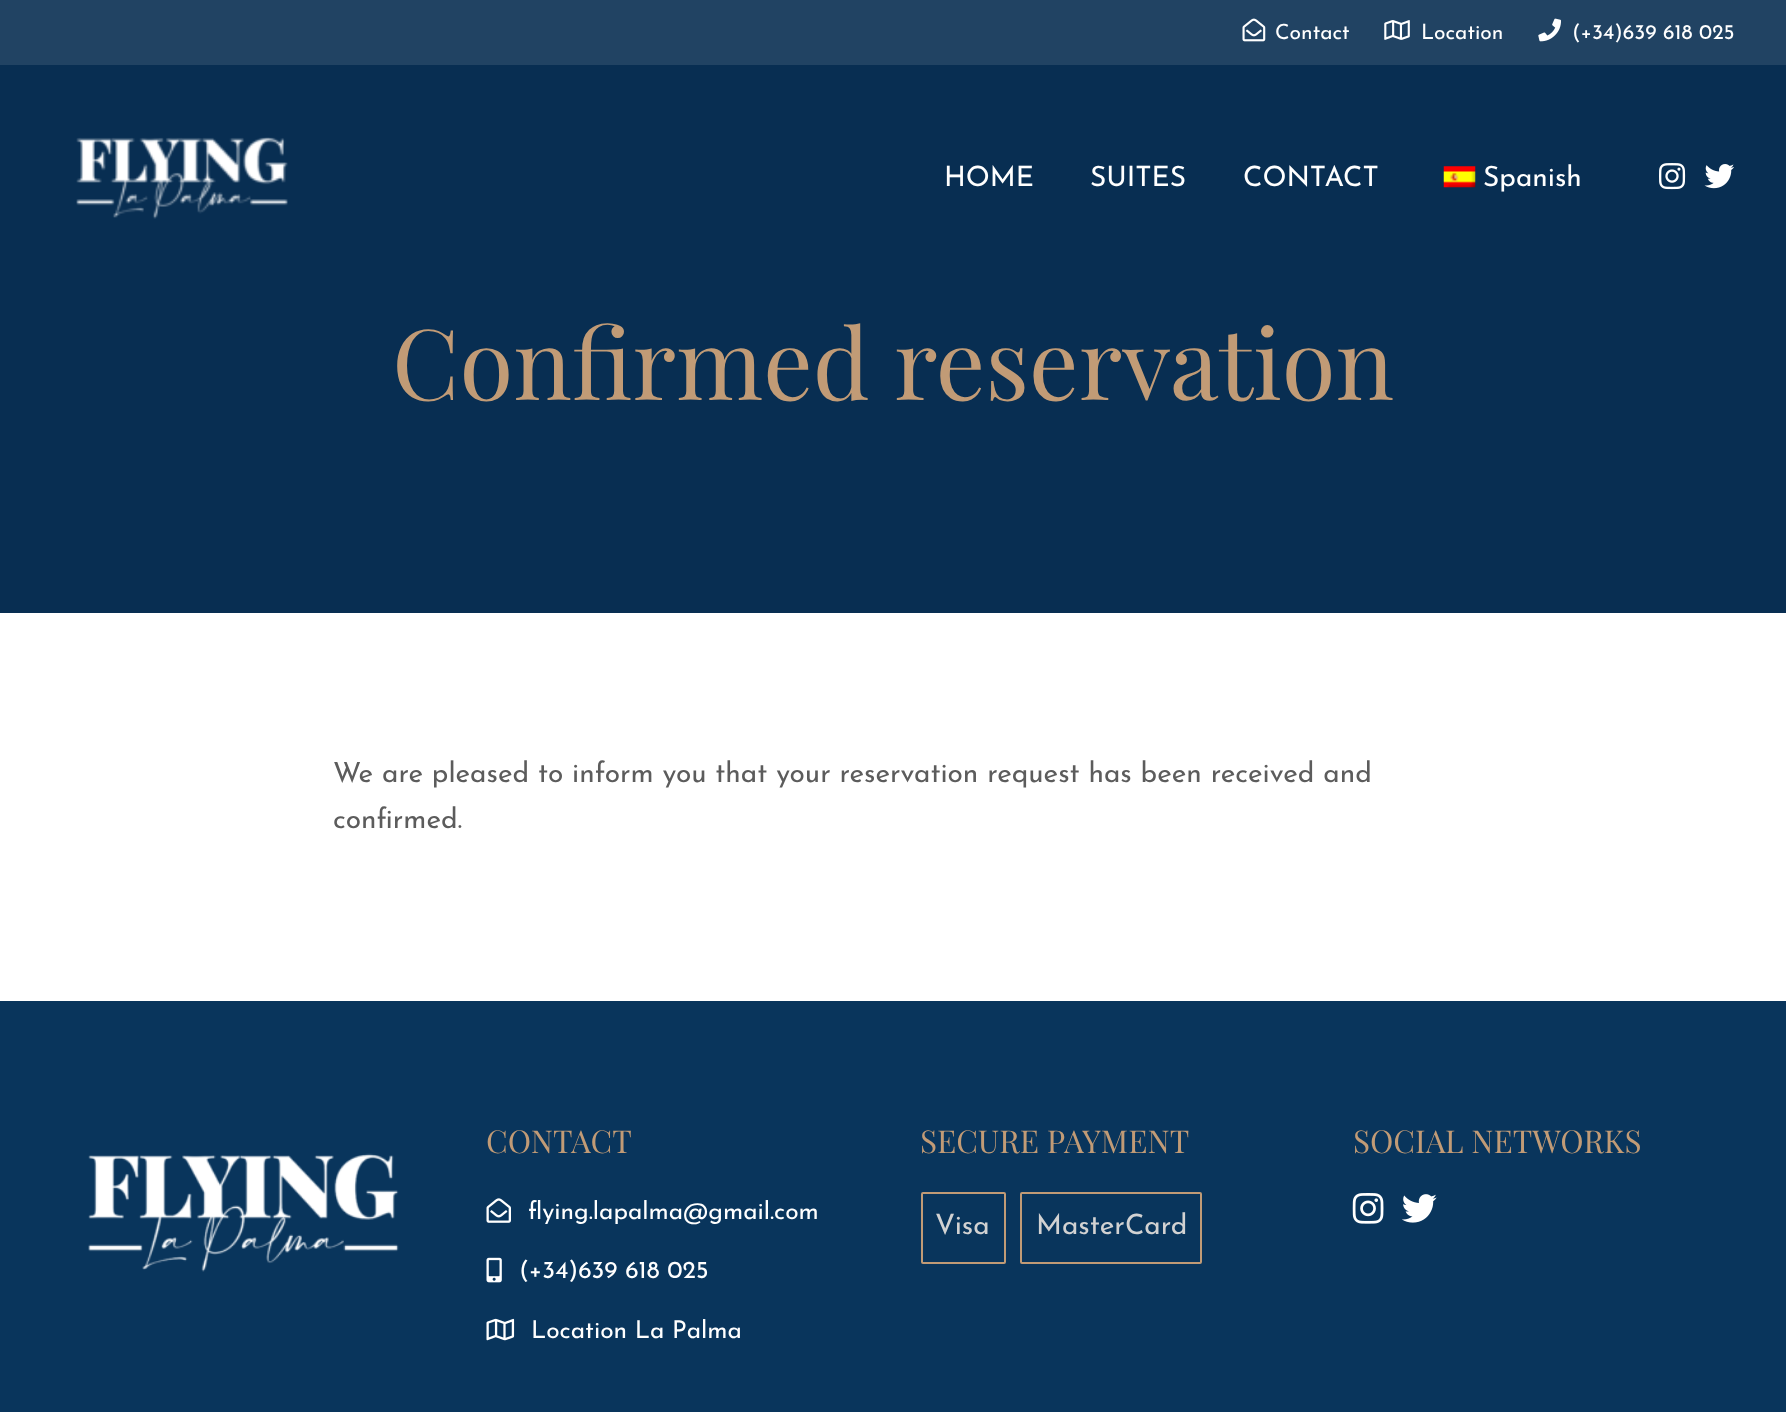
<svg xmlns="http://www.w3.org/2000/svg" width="1786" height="1412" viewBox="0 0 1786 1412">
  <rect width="100%" height="100%" fill="#ffffff"/>
  <rect x="0" y="0" width="1786" height="65" fill="#214363"/>
  <image x="1242" y="18" width="24" height="24" href="img1.png"/>
  <text x="1275" y="39" font-family="Josefin Sans" font-size="21" fill="#ffffff">Contact</text>
  <image x="1384" y="20" width="26" height="20" href="img2.png"/>
  <text x="1421" y="39" font-family="Josefin Sans" font-size="21" fill="#ffffff">Location</text>
  <image x="1538" y="18" width="23" height="24" href="img3.png"/>
  <text x="1572" y="39" font-family="Josefin Sans" font-size="21" fill="#ffffff">(+34)639 618 025</text>
  <rect x="0" y="65" width="1786" height="548" fill="#082e52"/>
  <image x="76" y="137" width="212" height="82" href="img4.png"/>
  <text x="944" y="186" font-family="Josefin Sans" font-size="28" fill="#ffffff">HOME</text>
  <text x="1090" y="186" font-family="Josefin Sans" font-size="28" fill="#ffffff">SUITES</text>
  <text x="1243" y="186" font-family="Josefin Sans" font-size="28" fill="#ffffff">CONTACT</text>
  <image x="1443" y="166" width="33" height="22" href="img5.png"/>
  <text x="1483" y="186" font-family="Josefin Sans" font-size="28" fill="#ffffff">Spanish</text>
  <image x="1659" y="163" width="27" height="27" href="img6.png"/>
  <image x="1704" y="164" width="30" height="25" href="img7.png"/>
  <text x="392" y="400" font-family="Playfair Display" font-size="98" fill="#c19b76">Confirmed reservation</text>
  <text x="333" y="782" font-family="Josefin Sans" font-size="28" fill="#5c5c5c">We are pleased to inform you that your reservation request has been received and</text>
  <text x="333" y="828" font-family="Josefin Sans" font-size="28" fill="#5c5c5c">confirmed.</text>
  <rect x="0" y="1001" width="1786" height="411" fill="#09355c"/>
  <text x="486" y="1153" font-family="Playfair Display" font-size="31.5" fill="#c19b76">CONTACT</text>
  <image x="486" y="1198" width="25" height="25" href="img8.png"/>
  <text x="528" y="1219" font-family="Josefin Sans" font-size="24.5" fill="#ffffff">flying.lapalma@gmail.com</text>
  <image x="486" y="1257" width="16" height="26" href="img9.png"/>
  <text x="519" y="1278" font-family="Josefin Sans" font-size="24.5" fill="#ffffff">(+34)639 618 025</text>
  <image x="486" y="1318" width="29" height="23" href="img10.png"/>
  <text x="531" y="1338" font-family="Josefin Sans" font-size="24.5" fill="#ffffff">Location La Palma</text>
  <text x="920" y="1153" font-family="Playfair Display" font-size="31.5" fill="#c19b76">SECURE PAYMENT</text>
  <rect x="922" y="1193" width="83" height="70" rx="1" fill="none" stroke="#c19b76" stroke-width="2"/>
  <text x="935" y="1234" font-family="Josefin Sans" font-size="28" fill="#d2d2d2">Visa</text>
  <rect x="1021" y="1193" width="180" height="70" rx="1" fill="none" stroke="#c19b76" stroke-width="2"/>
  <text x="1036" y="1234" font-family="Josefin Sans" font-size="28" fill="#d2d2d2">MasterCard</text>
  <text x="1353" y="1153" font-family="Playfair Display" font-size="31.5" fill="#c19b76">SOCIAL NETWORKS</text>
  <image x="1352" y="1193" width="32" height="31" href="img11.png"/>
  <image x="1402" y="1194" width="35" height="29" href="img12.png"/>
  <image x="88" y="1153" width="311" height="119" href="img13.png"/>
</svg>
